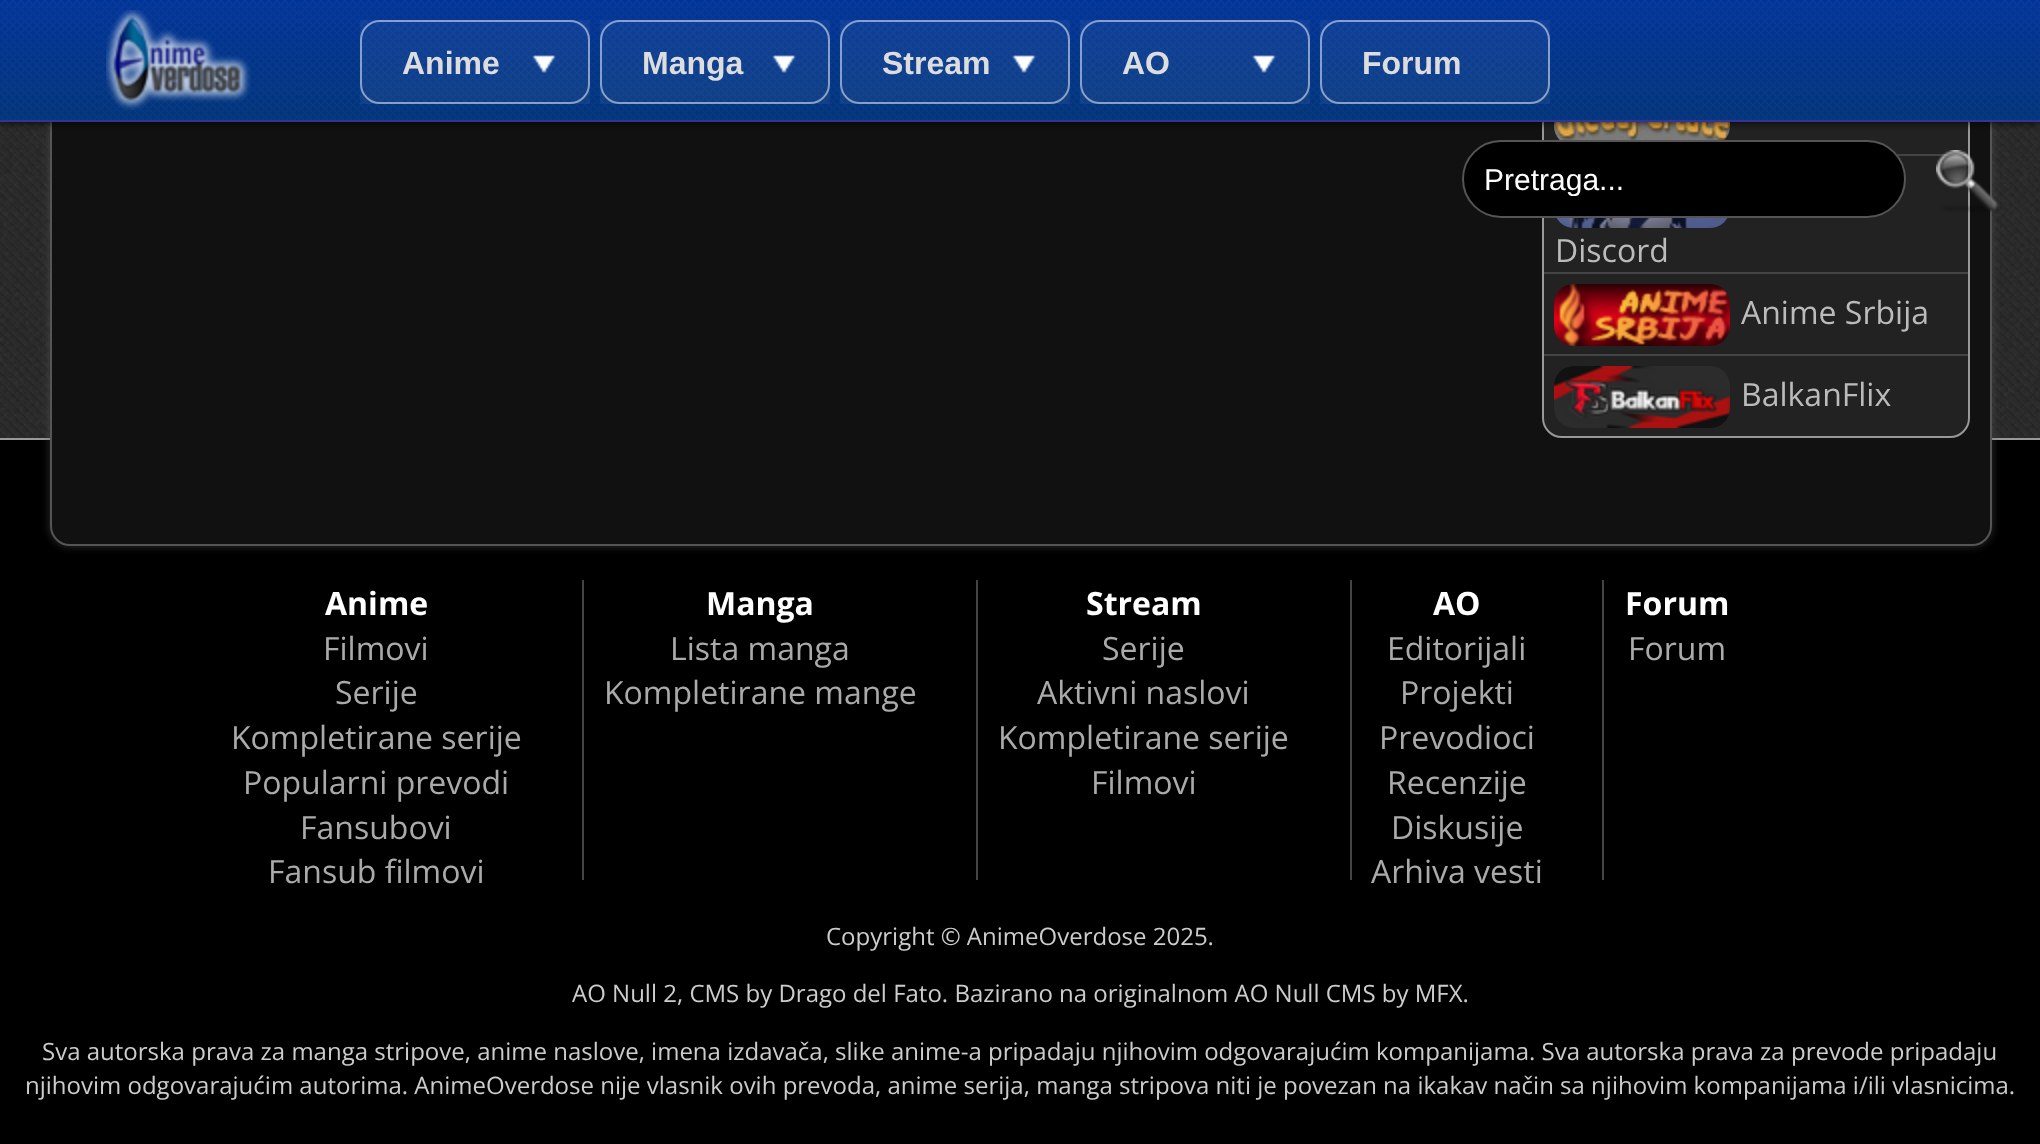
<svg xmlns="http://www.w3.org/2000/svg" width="2040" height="1144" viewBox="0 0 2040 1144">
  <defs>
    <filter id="blur1" x="-50%" y="-200%" width="200%" height="500%"><feGaussianBlur stdDeviation="5"/></filter>
    <clipPath id="clip1"><rect x="1484" y="162" width="400" height="34"/></clipPath>
  </defs>
  <rect width="100%" height="100%" fill="#ffffff"/>
  <image x="0" y="122" width="2040" height="316" href="img1.png"/>
  <rect x="0" y="440" width="2040" height="704" fill="#000000"/>
  <rect x="0" y="438" width="2040" height="2" fill="#999999"/>
  <rect x="50" y="-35" width="1942" height="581" rx="20" fill="#5a5a5a" fill-opacity="0.5" filter="url(#blur1)"/>
  <path d="M51-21H1972C1982.5-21 1991-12.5 1991-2V526C1991 536.5 1982.5 545 1972 545H70C59.5 545 51 536.5 51 526Z" fill="#111111" stroke="#555555" stroke-width="2"/>
  <rect x="1543" y="-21" width="426" height="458" rx="19" fill="#222222" stroke="#999999" stroke-width="2"/>
  <image x="1554" y="122" width="176" height="18" href="img7.png"/>
  <rect x="0" y="0" width="2040" height="122" fill="#000000" filter="url(#blur1)"/>
  <image x="0" y="0" width="2040" height="120" href="img2.png"/>
  <rect x="0" y="120" width="2040" height="2" fill="#333399"/>
  <image x="106" y="10" width="145" height="100" href="img3.png"/>
  <rect x="360" y="20" width="230" height="84" fill="#ffffff" fill-opacity="0.05"/>
  <image x="532" y="55" width="24" height="18" href="img4.png"/>
  <rect x="361" y="21" width="228" height="82" rx="19" fill="none" stroke="#ffffff" stroke-opacity="0.5" stroke-width="2"/>
  <text x="402" y="74" font-family="Liberation Sans" font-size="32" font-weight="bold" fill="#dddddd">Anime</text>
  <rect x="600" y="20" width="230" height="84" fill="#ffffff" fill-opacity="0.05"/>
  <image x="772" y="55" width="24" height="18" href="img4.png"/>
  <rect x="601" y="21" width="228" height="82" rx="19" fill="none" stroke="#ffffff" stroke-opacity="0.5" stroke-width="2"/>
  <text x="642" y="74" font-family="Liberation Sans" font-size="32" font-weight="bold" fill="#dddddd">Manga</text>
  <rect x="840" y="20" width="230" height="84" fill="#ffffff" fill-opacity="0.05"/>
  <image x="1012" y="55" width="24" height="18" href="img5.png"/>
  <rect x="841" y="21" width="228" height="82" rx="19" fill="none" stroke="#ffffff" stroke-opacity="0.5" stroke-width="2"/>
  <text x="882" y="74" font-family="Liberation Sans" font-size="32" font-weight="bold" fill="#dddddd">Stream</text>
  <rect x="1080" y="20" width="230" height="84" fill="#ffffff" fill-opacity="0.05"/>
  <image x="1252" y="55" width="24" height="18" href="img5.png"/>
  <rect x="1081" y="21" width="228" height="82" rx="19" fill="none" stroke="#ffffff" stroke-opacity="0.5" stroke-width="2"/>
  <text x="1122" y="74" font-family="Liberation Sans" font-size="32" font-weight="bold" fill="#dddddd">AO</text>
  <rect x="1320" y="20" width="230" height="84" fill="#ffffff" fill-opacity="0.05"/>
  <rect x="1321" y="21" width="228" height="82" rx="19" fill="none" stroke="#ffffff" stroke-opacity="0.5" stroke-width="2"/>
  <text x="1362" y="74" font-family="Liberation Sans" font-size="32" font-weight="bold" fill="#dddddd">Forum</text>
  <rect x="1897" y="154" width="71" height="2" fill="#444444"/>
  <rect x="1463" y="141" width="442" height="76" rx="38" fill="#000000" stroke="#555555" stroke-width="2"/>
  <g clip-path="url(#clip1)">
    <text x="1484" y="190" font-family="Liberation Sans" font-size="30" fill="#ffffff">Pretraga...</text>
  </g>
  <image x="1936" y="150" width="63" height="63" href="img6.png"/>
  <image x="1556" y="218" width="172" height="10" href="img8.png"/>
  <text x="1555" y="262" font-family="Open Sans" font-size="32" fill="#bbbbbb">Discord</text>
  <rect x="1544" y="272" width="424" height="2" fill="#444444"/>
  <image x="1554" y="284" width="176" height="62" href="img9.png"/>
  <text x="1741" y="324" font-family="Open Sans" font-size="32" fill="#bbbbbb">Anime Srbija</text>
  <rect x="1544" y="354" width="424" height="2" fill="#444444"/>
  <image x="1554" y="366" width="176" height="62" href="img10.png"/>
  <text x="1741" y="406" font-family="Open Sans" font-size="32" fill="#bbbbbb">BalkanFlix</text>
  <rect x="582" y="580" width="2" height="300" fill="#444444"/>
  <text x="325" y="615" font-family="Open Sans" font-size="32" font-weight="bold" fill="#ffffff">Anime</text>
  <text x="323" y="660" font-family="Open Sans" font-size="32" fill="#aaaaaa">Filmovi</text>
  <text x="335" y="704" font-family="Open Sans" font-size="32" fill="#aaaaaa">Serije</text>
  <text x="231" y="749" font-family="Open Sans" font-size="32" fill="#aaaaaa">Kompletirane serije</text>
  <text x="243" y="794" font-family="Open Sans" font-size="32" fill="#aaaaaa">Popularni prevodi</text>
  <text x="300" y="839" font-family="Open Sans" font-size="32" fill="#aaaaaa">Fansubovi</text>
  <text x="268" y="883" font-family="Open Sans" font-size="32" fill="#aaaaaa">Fansub filmovi</text>
  <rect x="976" y="580" width="2" height="300" fill="#444444"/>
  <text x="706" y="615" font-family="Open Sans" font-size="32" font-weight="bold" fill="#ffffff">Manga</text>
  <text x="670" y="660" font-family="Open Sans" font-size="32" fill="#aaaaaa">Lista manga</text>
  <text x="604" y="704" font-family="Open Sans" font-size="32" fill="#aaaaaa">Kompletirane mange</text>
  <rect x="1350" y="580" width="2" height="300" fill="#444444"/>
  <text x="1086" y="615" font-family="Open Sans" font-size="32" font-weight="bold" fill="#ffffff">Stream</text>
  <text x="1102" y="660" font-family="Open Sans" font-size="32" fill="#aaaaaa">Serije</text>
  <text x="1037" y="704" font-family="Open Sans" font-size="32" fill="#aaaaaa">Aktivni naslovi</text>
  <text x="998" y="749" font-family="Open Sans" font-size="32" fill="#aaaaaa">Kompletirane serije</text>
  <text x="1091" y="794" font-family="Open Sans" font-size="32" fill="#aaaaaa">Filmovi</text>
  <rect x="1602" y="580" width="2" height="300" fill="#444444"/>
  <text x="1433" y="615" font-family="Open Sans" font-size="32" font-weight="bold" fill="#ffffff">AO</text>
  <text x="1387" y="660" font-family="Open Sans" font-size="32" fill="#aaaaaa">Editorijali</text>
  <text x="1400" y="704" font-family="Open Sans" font-size="32" fill="#aaaaaa">Projekti</text>
  <text x="1379" y="749" font-family="Open Sans" font-size="32" fill="#aaaaaa">Prevodioci</text>
  <text x="1387" y="794" font-family="Open Sans" font-size="32" fill="#aaaaaa">Recenzije</text>
  <text x="1391" y="839" font-family="Open Sans" font-size="32" fill="#aaaaaa">Diskusije</text>
  <text x="1371" y="883" font-family="Open Sans" font-size="32" fill="#aaaaaa">Arhiva vesti</text>
  <text x="1625" y="615" font-family="Open Sans" font-size="32" font-weight="bold" fill="#ffffff">Forum</text>
  <text x="1628" y="660" font-family="Open Sans" font-size="32" fill="#aaaaaa">Forum</text>
  <text x="826" y="945" font-family="Open Sans" font-size="24" fill="#cccccc">Copyright © AnimeOverdose 2025.</text>
  <text x="572" y="1002" font-family="Open Sans" font-size="24" fill="#cccccc">AO Null 2, CMS by Drago del Fato. Bazirano na originalnom AO Null CMS by MFX.</text>
  <text x="42" y="1060" font-family="Open Sans" font-size="24" fill="#cccccc">Sva autorska prava za manga stripove, anime naslove, imena izdavača, slike anime-a pripadaju njihovim odgovarajućim kompanijama. Sva autorska prava za prevode pripadaju</text>
  <text x="25" y="1094" font-family="Open Sans" font-size="24" fill="#cccccc">njihovim odgovarajućim autorima. AnimeOverdose nije vlasnik ovih prevoda, anime serija, manga stripova niti je povezan na ikakav način sa njihovim kompanijama i/ili vlasnicima.</text>
</svg>
